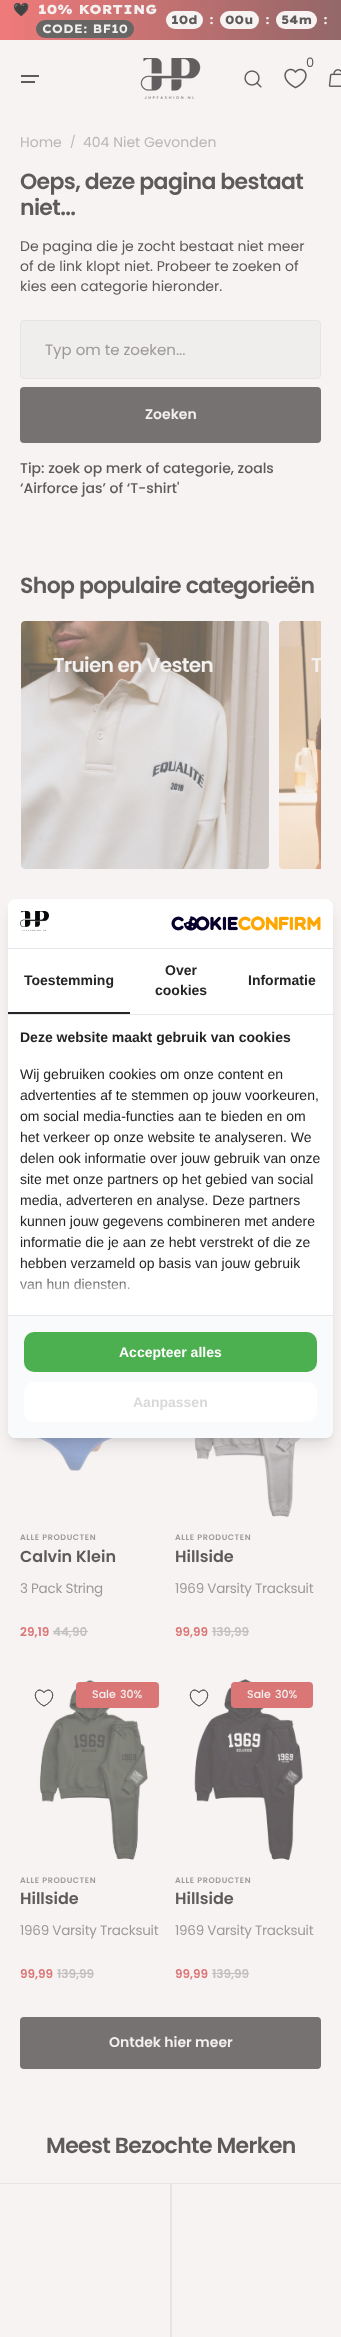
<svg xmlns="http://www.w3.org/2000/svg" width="341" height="2337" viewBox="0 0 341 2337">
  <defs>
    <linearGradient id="g1" gradientUnits="userSpaceOnUse" x1="0" y1="20" x2="341" y2="20"><stop offset="0" stop-color="#f6d168"/><stop offset="0" stop-color="#f07a7a"/><stop offset="1" stop-color="#936768"/></linearGradient>
    <clipPath id="clip1"><rect x="20" y="619" width="301" height="251"/></clipPath>
    <filter id="blur1" x="-50%" y="-200%" width="200%" height="500%"><feGaussianBlur stdDeviation="3"/></filter>
    <filter id="blur2" x="-50%" y="-200%" width="200%" height="500%"><feGaussianBlur stdDeviation="7.5"/></filter>
    <clipPath id="clip2"><rect x="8" y="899" width="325" height="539" rx="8"/></clipPath>
    <filter id="blur3" x="-50%" y="-200%" width="200%" height="500%"><feGaussianBlur stdDeviation="10"/></filter>
  </defs>
  <rect width="100%" height="100%" fill="#f7f3f3"/>
  <rect x="0" y="0" width="341" height="40" fill="url(#g1)"/>
  <text x="13" y="14" font-family="Noto Color Emoji" font-size="13" font-weight="bold" fill="#f3f0f0">🖤</text>
  <text x="38" y="14" font-family="Lexend Exa" font-size="13" font-weight="900" fill="#f3f0f0">10% KORTING</text>
  <rect x="36" y="20" width="98" height="18" rx="9" fill="#686565"/>
  <text x="42" y="33" font-family="Lexend Exa" font-size="12" font-weight="bold" fill="#f3f0f0">CODE: BF10</text>
  <rect x="166" y="11" width="37" height="18" rx="9" fill="#f7f3f3"/>
  <text x="171" y="24" font-family="Lexend Exa" font-size="12" font-weight="800" fill="#5e5a5a">10d</text>
  <text x="209" y="24" font-family="Lexend Exa" font-size="13" font-weight="bold" fill="#f3f0f0">:</text>
  <rect x="220" y="11" width="39" height="18" rx="9" fill="#f7f3f3"/>
  <text x="225" y="24" font-family="Lexend Exa" font-size="12" font-weight="800" fill="#5e5a5a">00u</text>
  <text x="265" y="24" font-family="Lexend Exa" font-size="13" font-weight="bold" fill="#f3f0f0">:</text>
  <rect x="276" y="11" width="41" height="18" rx="9" fill="#f7f3f3"/>
  <text x="281" y="24" font-family="Lexend Exa" font-size="12" font-weight="800" fill="#5e5a5a">54m</text>
  <text x="323" y="24" font-family="Lexend Exa" font-size="13" font-weight="bold" fill="#f3f0f0">:</text>
  <rect x="21" y="75" width="18" height="2" fill="#5e5a5a"/>
  <rect x="21" y="81" width="14" height="2" fill="#5e5a5a"/>
  <image x="140" y="58" width="61" height="41" href="img1.png"/>
  <text x="306" y="67" font-family="Poppins" font-size="13" fill="#5e5a5a">0</text>
  <image x="284" y="68" width="23" height="21" href="img2.png"/>
  <image x="244" y="70" width="18" height="18" href="img3.png"/>
  <image x="328" y="69" width="13" height="18" href="img4.png"/>
  <text x="20" y="147" font-family="Poppins" font-size="14" fill="#bab6b6">Home</text>
  <text x="70" y="146" font-family="Poppins" font-size="12" fill="#bab6b6">/</text>
  <text x="83" y="147" font-family="Poppins" font-size="14" fill="#bab6b6">404 Niet Gevonden</text>
  <text x="20" y="189" font-family="Poppins" font-size="22" font-weight="600" letter-spacing="-0.65" fill="#5e5a5a">Oeps, deze pagina bestaat</text>
  <text x="20" y="215" font-family="Poppins" font-size="22" font-weight="600" letter-spacing="-0.65" fill="#5e5a5a">niet...</text>
  <text x="20" y="251" font-family="Poppins" font-size="14" fill="#5e5a5a">De pagina die je zocht bestaat niet meer</text>
  <text x="20" y="271" font-family="Poppins" font-size="14" fill="#5e5a5a">of de link klopt niet. Probeer te zoeken of</text>
  <text x="20" y="291" font-family="Poppins" font-size="14" fill="#5e5a5a">kies een categorie hieronder.</text>
  <rect x="20.5" y="320.5" width="300" height="58" rx="3.5" fill="#f0eded" stroke="#e7e4e4"/>
  <text x="45" y="355" font-family="Poppins" font-size="15" fill="#9d9999">Typ om te zoeken...</text>
  <rect x="20" y="387" width="301" height="56" rx="4" fill="#767272"/>
  <text x="145" y="419" font-family="Poppins" font-size="14" font-weight="600" fill="#f3f0f0">Zoeken</text>
  <text x="20" y="473" font-family="Poppins" font-size="14" font-weight="500" fill="#5e5a5a">Tip: zoek op merk of categorie, zoals</text>
  <text x="20" y="493" font-family="Poppins" font-size="14" font-weight="500" fill="#5e5a5a">‘Airforce jas’ of ‘T-shirt'</text>
  <text x="20" y="593" font-family="Poppins" font-size="22" font-weight="600" letter-spacing="-0.65" fill="#5e5a5a">Shop populaire categorieën</text>
  <image x="21" y="621" width="248" height="248" href="img5.png"/>
  <text x="53" y="672" font-family="Poppins" font-size="20" font-weight="600" letter-spacing="-0.6" fill="#f3f0f0">Truien en Vesten</text>
  <image x="279" y="621" width="42" height="248" href="img6.png"/>
  <g clip-path="url(#clip1)">
    <text x="311" y="672" font-family="Poppins" font-size="20" font-weight="600" letter-spacing="-0.6" fill="#f3f0f0">T</text>
  </g>
  <image x="27" y="1438" width="132" height="33" href="img7.png"/>
  <text x="20" y="1540" font-family="Poppins" font-size="8" font-weight="600" letter-spacing="0.6" fill="#9d9999">ALLE PRODUCTEN</text>
  <text x="20" y="1562" font-family="Poppins" font-size="16" font-weight="600" fill="#5e5a5a">Calvin Klein</text>
  <text x="20" y="1593" font-family="Poppins" font-size="13.5" letter-spacing="-0.25" fill="#9d9999">3 Pack String</text>
  <text x="20" y="1636" font-family="Poppins" font-size="12" font-weight="600" fill="#db7676">29,19</text>
  <text x="53" y="1636" font-family="Poppins" font-size="12" font-weight="600" fill="#c3c0c0">44,90</text>
  <rect x="53" y="1631" width="35" height="1" fill="#c3c0c0"/>
  <image x="194" y="1438" width="109" height="79" href="img8.png"/>
  <text x="175" y="1540" font-family="Poppins" font-size="8" font-weight="600" letter-spacing="0.6" fill="#9d9999">ALLE PRODUCTEN</text>
  <text x="175" y="1562" font-family="Poppins" font-size="16" font-weight="600" fill="#5e5a5a">Hillside</text>
  <text x="175" y="1593" font-family="Poppins" font-size="13.5" letter-spacing="-0.25" fill="#9d9999">1969 Varsity Tracksuit</text>
  <text x="175" y="1636" font-family="Poppins" font-size="12" font-weight="600" fill="#db7676">99,99</text>
  <text x="212" y="1636" font-family="Poppins" font-size="12" font-weight="600" fill="#c3c0c0">139,99</text>
  <rect x="212" y="1631" width="37" height="1" fill="#c3c0c0"/>
  <image x="39" y="1680" width="109" height="180" href="img9.png"/>
  <rect x="76" y="1682" width="83" height="26" rx="4" fill="#db7676"/>
  <text x="92" y="1698" font-family="Poppins" font-size="11" font-weight="500" fill="#f3f0f0">Sale</text>
  <text x="120" y="1698" font-family="Poppins" font-size="11" font-weight="500" fill="#f3f0f0">30%</text>
  <text x="20" y="1883" font-family="Poppins" font-size="8" font-weight="600" letter-spacing="0.6" fill="#9d9999">ALLE PRODUCTEN</text>
  <path d="M44 1706C29 1698.5 36.5 1684.5 44 1692.5C51.5 1684.5 59 1698.5 44 1706ZM44 1706C29 1698.5 36.5 1684.5 44 1692.5C51.5 1684.5 59 1698.5 44 1706Z" fill="none" stroke="#5e5a5a"/>
  <text x="20" y="1904" font-family="Poppins" font-size="16" font-weight="600" fill="#5e5a5a">Hillside</text>
  <text x="20" y="1935" font-family="Poppins" font-size="13.5" letter-spacing="-0.25" fill="#9d9999">1969 Varsity Tracksuit</text>
  <text x="20" y="1978" font-family="Poppins" font-size="12" font-weight="600" fill="#db7676">99,99</text>
  <text x="57" y="1978" font-family="Poppins" font-size="12" font-weight="600" fill="#c3c0c0">139,99</text>
  <rect x="57" y="1973" width="37" height="1" fill="#c3c0c0"/>
  <image x="194" y="1679" width="109" height="181" href="img10.png"/>
  <rect x="231" y="1682" width="82" height="26" rx="4" fill="#db7676"/>
  <text x="247" y="1698" font-family="Poppins" font-size="11" font-weight="500" fill="#f3f0f0">Sale</text>
  <text x="275" y="1698" font-family="Poppins" font-size="11" font-weight="500" fill="#f3f0f0">30%</text>
  <text x="175" y="1883" font-family="Poppins" font-size="8" font-weight="600" letter-spacing="0.6" fill="#9d9999">ALLE PRODUCTEN</text>
  <path d="M199 1706C184 1698.5 191.5 1684.5 199 1692.5C206.5 1684.5 214 1698.5 199 1706ZM199 1706C184 1698.5 191.5 1684.5 199 1692.5C206.5 1684.5 214 1698.5 199 1706Z" fill="none" stroke="#5e5a5a"/>
  <text x="175" y="1904" font-family="Poppins" font-size="16" font-weight="600" fill="#5e5a5a">Hillside</text>
  <text x="175" y="1935" font-family="Poppins" font-size="13.5" letter-spacing="-0.25" fill="#9d9999">1969 Varsity Tracksuit</text>
  <text x="175" y="1978" font-family="Poppins" font-size="12" font-weight="600" fill="#db7676">99,99</text>
  <text x="212" y="1978" font-family="Poppins" font-size="12" font-weight="600" fill="#c3c0c0">139,99</text>
  <rect x="212" y="1973" width="37" height="1" fill="#c3c0c0"/>
  <rect x="20" y="2017" width="301" height="52" rx="4" fill="#767272"/>
  <text x="109" y="2047" font-family="Poppins" font-size="14" font-weight="600" fill="#f3f0f0">Ontdek hier meer</text>
  <text x="46" y="2153" font-family="Poppins" font-size="22" font-weight="600" letter-spacing="-0.65" fill="#5e5a5a">Meest Bezochte Merken</text>
  <rect x="-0.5" y="2183.5" width="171" height="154" fill="none" stroke="#e7e4e4"/>
  <rect x="171.5" y="2183.5" width="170" height="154" fill="none" stroke="#e7e4e4"/>
  <rect x="12" y="907" width="317" height="531" rx="4" fill="#000000" fill-opacity="0.1" filter="url(#blur1)"/>
  <rect x="11" y="912" width="319" height="533" rx="5" fill="#000000" fill-opacity="0.1" filter="url(#blur2)"/>
  <rect x="8" y="899" width="325" height="539" rx="8" fill="#ffffff"/>
  <rect x="8" y="948" width="325" height="1" fill="#e5e7eb"/>
  <image x="20" y="911" width="29" height="20" href="img11.png"/>
  <image x="171" y="916" width="150" height="15" href="img12.png"/>
  <rect x="8" y="1014" width="325" height="1" fill="#e5e7eb"/>
  <rect x="8" y="1012" width="122" height="2" fill="#242424"/>
  <text x="24" y="985" font-family="Liberation Sans" font-size="14" font-weight="bold" fill="#242424">Toestemming</text>
  <text x="165" y="975" font-family="Liberation Sans" font-size="14" font-weight="bold" fill="#242424">Over</text>
  <text x="155" y="995" font-family="Liberation Sans" font-size="14" font-weight="bold" fill="#242424">cookies</text>
  <text x="248" y="985" font-family="Liberation Sans" font-size="14" font-weight="bold" fill="#242424">Informatie</text>
  <text x="20" y="1042" font-family="Liberation Sans" font-size="14" font-weight="bold" fill="#242424">Deze website maakt gebruik van cookies</text>
  <text x="20" y="1079" font-family="Liberation Sans" font-size="14" fill="#242424">Wij gebruiken cookies om onze content en</text>
  <text x="20" y="1100" font-family="Liberation Sans" font-size="14" fill="#242424">advertenties af te stemmen op jouw voorkeuren,</text>
  <text x="20" y="1121" font-family="Liberation Sans" font-size="14" fill="#242424">om social media-functies aan te bieden en om</text>
  <text x="20" y="1142" font-family="Liberation Sans" font-size="14" fill="#242424">het verkeer op onze website te analyseren. We</text>
  <text x="20" y="1163" font-family="Liberation Sans" font-size="14" fill="#242424">delen ook informatie over jouw gebruik van onze</text>
  <text x="20" y="1184" font-family="Liberation Sans" font-size="14" fill="#242424">site met onze partners op het gebied van social</text>
  <text x="20" y="1205" font-family="Liberation Sans" font-size="14" fill="#242424">media, adverteren en analyse. Deze partners</text>
  <text x="20" y="1226" font-family="Liberation Sans" font-size="14" fill="#242424">kunnen jouw gegevens combineren met andere</text>
  <text x="20" y="1247" font-family="Liberation Sans" font-size="14" fill="#242424">informatie die je aan ze hebt verstrekt of die ze</text>
  <text x="20" y="1268" font-family="Liberation Sans" font-size="14" fill="#242424">hebben verzameld op basis van jouw gebruik</text>
  <text x="20" y="1289" font-family="Liberation Sans" font-size="14" fill="#242424">van hun diensten.</text>
  <g clip-path="url(#clip2)">
    <rect x="0" y="1287" width="341" height="139" fill="#ffffff" filter="url(#blur3)"/>
  </g>
  <path d="M8 1315H333V1430C333 1434.5 329.5 1438 325 1438H16C11.5 1438 8 1434.5 8 1430Z" fill="#f9fafb"/>
  <rect x="8" y="1315" width="325" height="1" fill="#e5e7eb"/>
  <rect x="24" y="1332" width="293" height="40" rx="10" fill="#4caf50"/>
  <text x="119" y="1357" font-family="Liberation Sans" font-size="14" font-weight="bold" fill="#ffffff">Accepteer alles</text>
  <rect x="24" y="1382" width="293" height="40" rx="10" fill="#ffffff"/>
  <text x="133" y="1407" font-family="Liberation Sans" font-size="14" font-weight="bold" fill="#d9d9d9">Aanpassen</text>
</svg>
